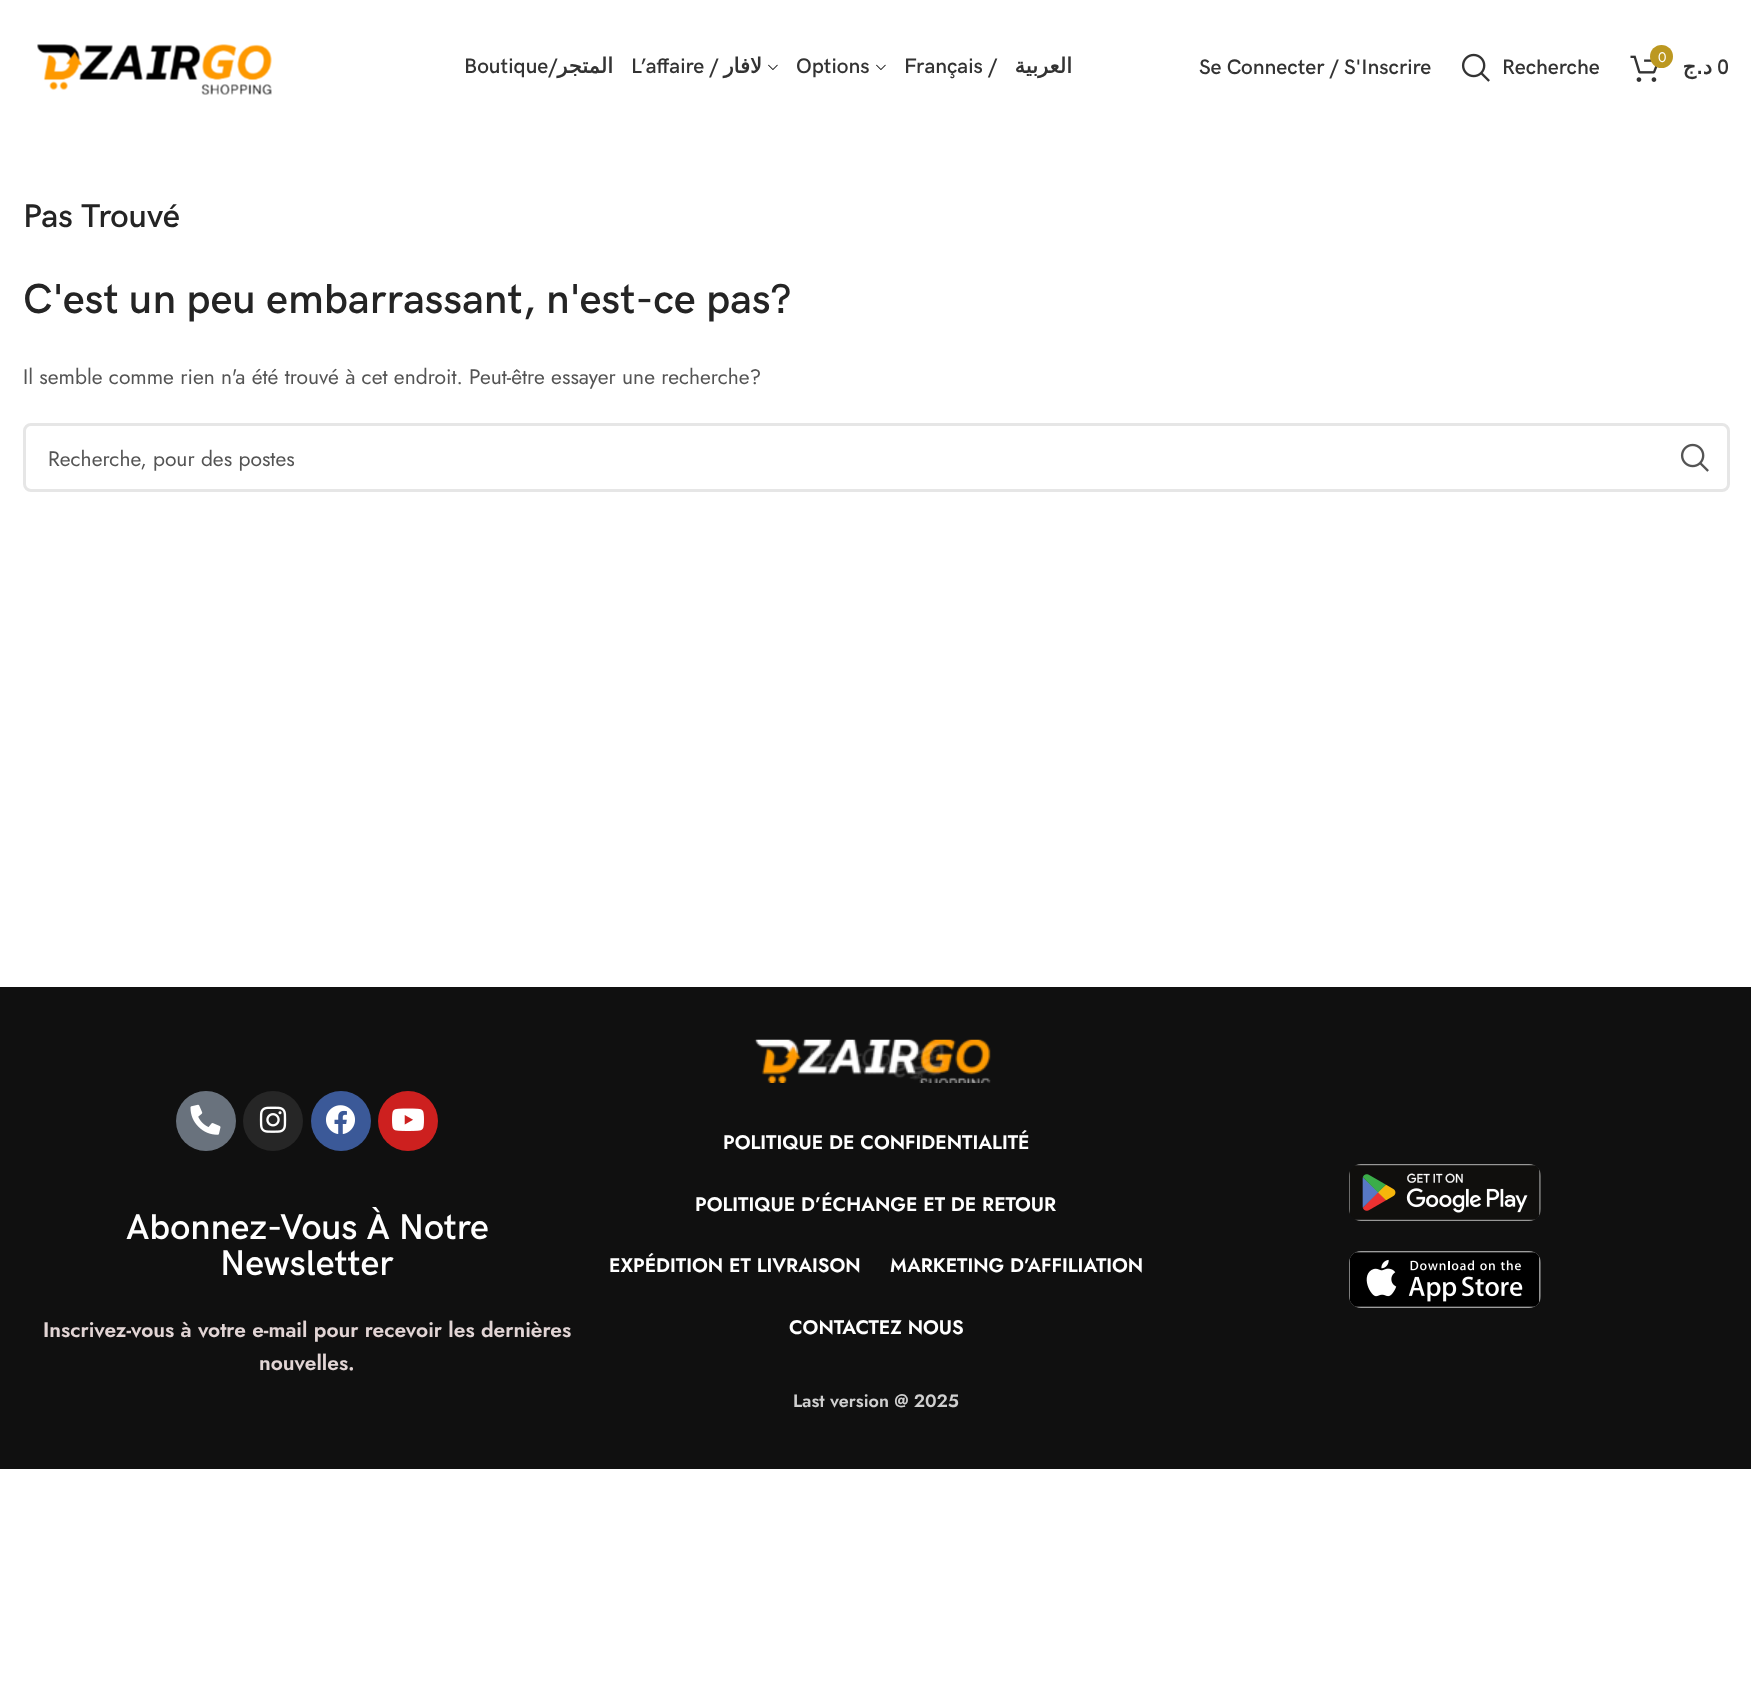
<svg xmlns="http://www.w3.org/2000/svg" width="1751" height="1703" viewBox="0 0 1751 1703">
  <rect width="100%" height="100%" fill="#ffffff"/>
  <image x="37" y="44" width="235" height="51" href="img1.png"/>
  <text x="464" y="73" font-family="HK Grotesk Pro" font-size="21" font-weight="600" fill="#333333">Boutique/</text>
  <text x="613" y="73" font-family="DejaVu Sans" font-size="21" font-weight="bold" direction="rtl" fill="#333333">المتجر</text>
  <text x="631" y="73" font-family="HK Grotesk Pro" font-size="21" font-weight="600" fill="#333333">L’affaire /</text>
  <text x="762" y="73" font-family="DejaVu Sans" font-size="21" font-weight="bold" direction="rtl" fill="#333333">لافار</text>
  <image x="768" y="64" width="10" height="6" href="img2.png"/>
  <text x="796" y="73" font-family="HK Grotesk Pro" font-size="21" font-weight="600" fill="#333333">Options</text>
  <image x="876" y="64" width="10" height="6" href="img2.png"/>
  <text x="904" y="73" font-family="HK Grotesk Pro" font-size="21" font-weight="600" fill="#333333">Français /</text>
  <text x="1072" y="73" font-family="DejaVu Sans" font-size="21" font-weight="bold" direction="rtl" fill="#333333">العربية</text>
  <text x="1199" y="74" font-family="HK Grotesk Pro" font-size="21" font-weight="600" fill="#333333">Se Connecter / S'Inscrire</text>
  <image x="1461" y="53" width="29" height="29" href="img3.png"/>
  <text x="1502" y="74" font-family="HK Grotesk Pro" font-size="21" font-weight="600" fill="#333333">Recherche</text>
  <image x="1630" y="55" width="28" height="27" href="img4.png"/>
  <circle cx="1661.5" cy="56.5" r="11.5" fill="#bc9821"/>
  <text x="1658" y="62" font-family="Jost" font-size="14" fill="#ffffff">0</text>
  <text x="1712" y="74" font-family="DejaVu Sans" font-size="21" font-weight="bold" direction="rtl" fill="#333333">د.ج</text>
  <text x="1717" y="74" font-family="HK Grotesk Pro" font-size="21" font-weight="600" fill="#333333">0</text>
  <text x="23" y="227" font-family="HK Grotesk Pro" font-size="33" font-weight="600" fill="#242424">Pas Trouvé</text>
  <text x="23" y="313" font-family="HK Grotesk Pro" font-size="42" font-weight="600" fill="#242424">C'est un peu embarrassant, n'est-ce pas?</text>
  <text x="23" y="384" font-family="Jost" font-size="21" fill="#545454">Il semble comme rien n'a été trouvé à cet endroit. Peut-être essayer une recherche?</text>
  <rect x="24.5" y="424.5" width="1704" height="66" rx="6.5" fill="none" stroke="#e6e6e6" stroke-width="3"/>
  <text x="48" y="466" font-family="Jost" font-size="21" fill="#545454">Recherche, pour des postes</text>
  <image x="1680" y="443" width="29" height="29" href="img5.png"/>
  <rect x="0" y="987" width="1751" height="482" fill="#101010"/>
  <circle cx="206" cy="1121" r="30" fill="#69727d"/>
  <image x="190" y="1104" width="31" height="31" href="img6.png"/>
  <circle cx="273" cy="1121" r="30" fill="#262626"/>
  <image x="259" y="1106" width="28" height="27" href="img7.png"/>
  <circle cx="341" cy="1121" r="30" fill="#3b5998"/>
  <image x="326" y="1105" width="29" height="29" href="img8.png"/>
  <circle cx="408" cy="1121" r="30" fill="#cd201f"/>
  <image x="392" y="1108" width="32" height="23" href="img9.png"/>
  <text x="126" y="1239" font-family="HK Grotesk Pro" font-size="36" font-weight="600" fill="#ffffff">Abonnez-Vous À Notre</text>
  <text x="220" y="1275" font-family="HK Grotesk Pro" font-size="36" font-weight="600" fill="#ffffff">Newsletter</text>
  <text x="43" y="1337" font-family="Jost" font-size="21" font-weight="600" fill="#e2d5d5">Inscrivez-vous à votre e-mail pour recevoir les dernières</text>
  <text x="259" y="1370" font-family="Jost" font-size="21" font-weight="600" fill="#e2d5d5">nouvelles.</text>
  <image x="754" y="1039" width="237" height="44" href="img10.png"/>
  <text x="723" y="1149" font-family="Jost" font-size="19.5" font-weight="600" fill="#ffffff">POLITIQUE DE CONFIDENTIALITÉ</text>
  <text x="695" y="1211" font-family="Jost" font-size="19.5" font-weight="600" fill="#ffffff">POLITIQUE D’ÉCHANGE ET DE RETOUR</text>
  <text x="609" y="1272" font-family="Jost" font-size="19.5" font-weight="600" fill="#ffffff">EXPÉDITION ET LIVRAISON</text>
  <text x="890" y="1272" font-family="Jost" font-size="19.5" font-weight="600" fill="#ffffff">MARKETING D’AFFILIATION</text>
  <text x="789" y="1334" font-family="Jost" font-size="19.5" font-weight="600" fill="#ffffff">CONTACTEZ NOUS</text>
  <text x="793" y="1407" font-family="Jost" font-size="18" font-weight="600" fill="#cfcfcf">Last version @ 2025</text>
  <image x="1349" y="1164" width="192" height="57" href="img11.png"/>
  <image x="1349" y="1251" width="192" height="57" href="img12.png"/>
</svg>
